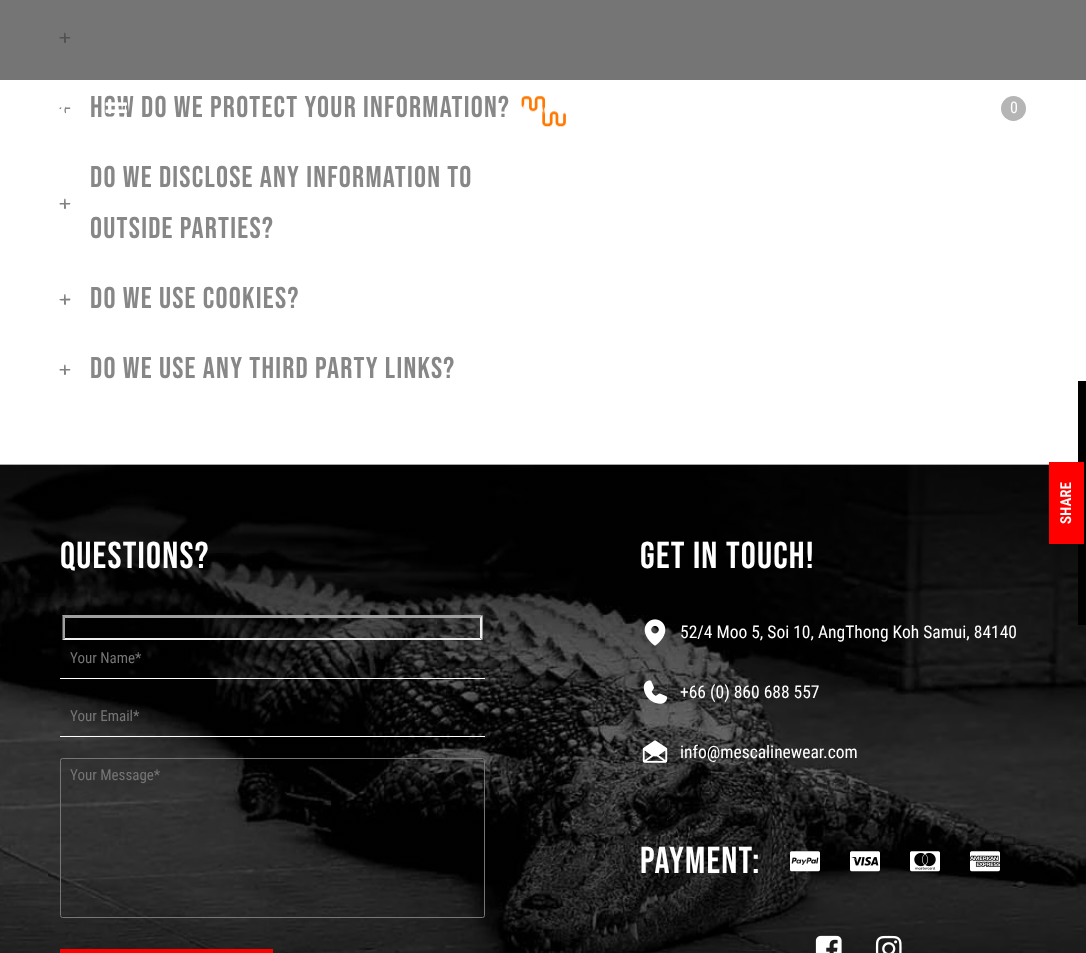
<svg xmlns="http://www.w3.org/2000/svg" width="1086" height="953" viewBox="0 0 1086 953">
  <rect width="100%" height="100%" fill="#ffffff"/>
  <path d="M64 42.5V36.5C64 35 64 31 65.5 33L66 42.5C65.5 43 64 43 64 42.5Z" fill="#828282"/>
  <path d="M69.5 38.5H63.5C62 38.5 58 39 60 37H70C70.5 37.5 70.5 38.5 69.5 38.5Z" fill="#828282"/>
  <path d="M64 113V107C64 105 64 101.5 65.5 103.5L66 113C65.5 113.5 64 113.5 64 113Z" fill="#828282"/>
  <path d="M69.5 109H63.5C62 109 58 109.5 60 107.5H70C70.5 107.5 70.5 109 69.5 109Z" fill="#828282"/>
  <text x="90" y="117" font-family="Bebas Neue" font-size="30" letter-spacing="1.25" fill="#878787">HOW DO WE PROTECT YOUR INFORMATION?</text>
  <path d="M64 208.5V202.5C64 201 64 197 65.5 199L66 208.5C65.5 209 64 209 64 208.5Z" fill="#828282"/>
  <path d="M69.5 204.5H63.5C62 204.5 58 205 60 203H70C70.5 203 70.5 204.5 69.5 204.5Z" fill="#828282"/>
  <text x="90" y="187" font-family="Bebas Neue" font-size="30" letter-spacing="1.25" fill="#878787">DO WE DISCLOSE ANY INFORMATION TO</text>
  <text x="90" y="238" font-family="Bebas Neue" font-size="30" letter-spacing="1.25" fill="#878787">OUTSIDE PARTIES?</text>
  <path d="M64 304V298C64 296.5 64 292.5 65.5 294.5L66 304.5C65.5 305 64 305 64 304Z" fill="#828282"/>
  <path d="M69.5 300.5H63.5C62 300.5 58 300.5 60 299L70 298.5C70.5 299 70.5 300.5 69.5 300.5Z" fill="#828282"/>
  <text x="90" y="308" font-family="Bebas Neue" font-size="30" letter-spacing="1.25" fill="#878787">DO WE USE COOKIES?</text>
  <path d="M64 374.5V368.5C64 366.5 64 363 65.5 365L66 374.5C65.5 375 64 375 64 374.5Z" fill="#828282"/>
  <path d="M69.5 370.5H63.5C62 370.5 58 371 60 369H70C70.5 369 70.5 370.5 69.5 370.5Z" fill="#828282"/>
  <text x="90" y="378" font-family="Bebas Neue" font-size="30" letter-spacing="1.25" fill="#878787">DO WE USE ANY THIRD PARTY LINKS?</text>
  <rect x="0" y="0" width="1086" height="80" fill="#3d3d3d" fill-opacity="0.71"/>
  <image x="61" y="103" width="5" height="11" href="img1.png"/>
  <image x="105" y="102" width="22" height="16" href="img2.png"/>
  <image x="521" y="96" width="45" height="31" href="img3.png"/>
  <circle cx="1013.5" cy="108.5" r="12.5" fill="#b5b5b5"/>
  <text x="1010" y="113" font-family="Roboto Condensed" font-size="16" fill="#ffffff">0</text>
  <image x="0" y="464" width="1086" height="489" href="img4.png"/>
  <rect x="1078" y="381" width="8" height="244" fill="#000000"/>
  <rect x="1049" y="462" width="35" height="82" fill="#ff0000"/>
  <text x="1071" y="524" transform="rotate(-90 1071 524)" font-family="Roboto Condensed" font-size="15" font-weight="600" fill="#ffffff">SHARE</text>
  <text x="60" y="568" font-family="Bebas Neue" font-size="37.5" letter-spacing="1.25" fill="#ffffff">Questions?</text>
  <path d="M62 615H482L480 618H65Z" fill="#9f9f9f"/>
  <path d="M482.5 615V640L480 637.5V617.5Z" fill="#efefef"/>
  <path d="M482 640H62L65 638H480Z" fill="#efefef"/>
  <path d="M62.5 640V615L65 617.5V637.5Z" fill="#9f9f9f"/>
  <rect x="60" y="678" width="425" height="1" fill="#ffffff"/>
  <text x="70" y="663" font-family="Roboto Condensed" font-size="15" fill="#757575">Your Name*</text>
  <rect x="60" y="736" width="425" height="1" fill="#ffffff"/>
  <text x="70" y="721" font-family="Roboto Condensed" font-size="15" fill="#757575">Your Email*</text>
  <rect x="60.5" y="758.5" width="424" height="159" rx="2" fill="none" stroke="#767676"/>
  <text x="70" y="780" font-family="Roboto Condensed" font-size="15" fill="#757575">Your Message*</text>
  <rect x="60" y="949" width="213" height="4" fill="#ff0000"/>
  <text x="640" y="568" font-family="Bebas Neue" font-size="37.5" letter-spacing="1.25" fill="#ffffff">get in touch!</text>
  <image x="644" y="619" width="22" height="27" href="img5.png"/>
  <text x="680" y="638" font-family="Roboto Condensed" font-size="17.5" fill="#ffffff">52/4 Moo 5, Soi 10, AngThong Koh Samui, 84140</text>
  <image x="643" y="680" width="25" height="24" href="img6.png"/>
  <text x="680" y="698" font-family="Roboto Condensed" font-size="17.5" fill="#ffffff">+66 (0) 860 688 557</text>
  <image x="642" y="740" width="26" height="23" href="img7.png"/>
  <text x="680" y="758" font-family="Roboto Condensed" font-size="17.5" fill="#ffffff">info@mescalinewear.com</text>
  <text x="640" y="873" font-family="Bebas Neue" font-size="37.5" letter-spacing="1.25" fill="#ffffff">payment:</text>
  <image x="790" y="851" width="30" height="21" href="img8.png"/>
  <image x="850" y="851" width="30" height="21" href="img9.png"/>
  <image x="910" y="851" width="30" height="21" href="img10.png"/>
  <image x="970" y="851" width="30" height="21" href="img11.png"/>
  <image x="815" y="935" width="27" height="18" href="img12.png"/>
  <image x="875" y="935" width="27" height="18" href="img13.png"/>
</svg>
